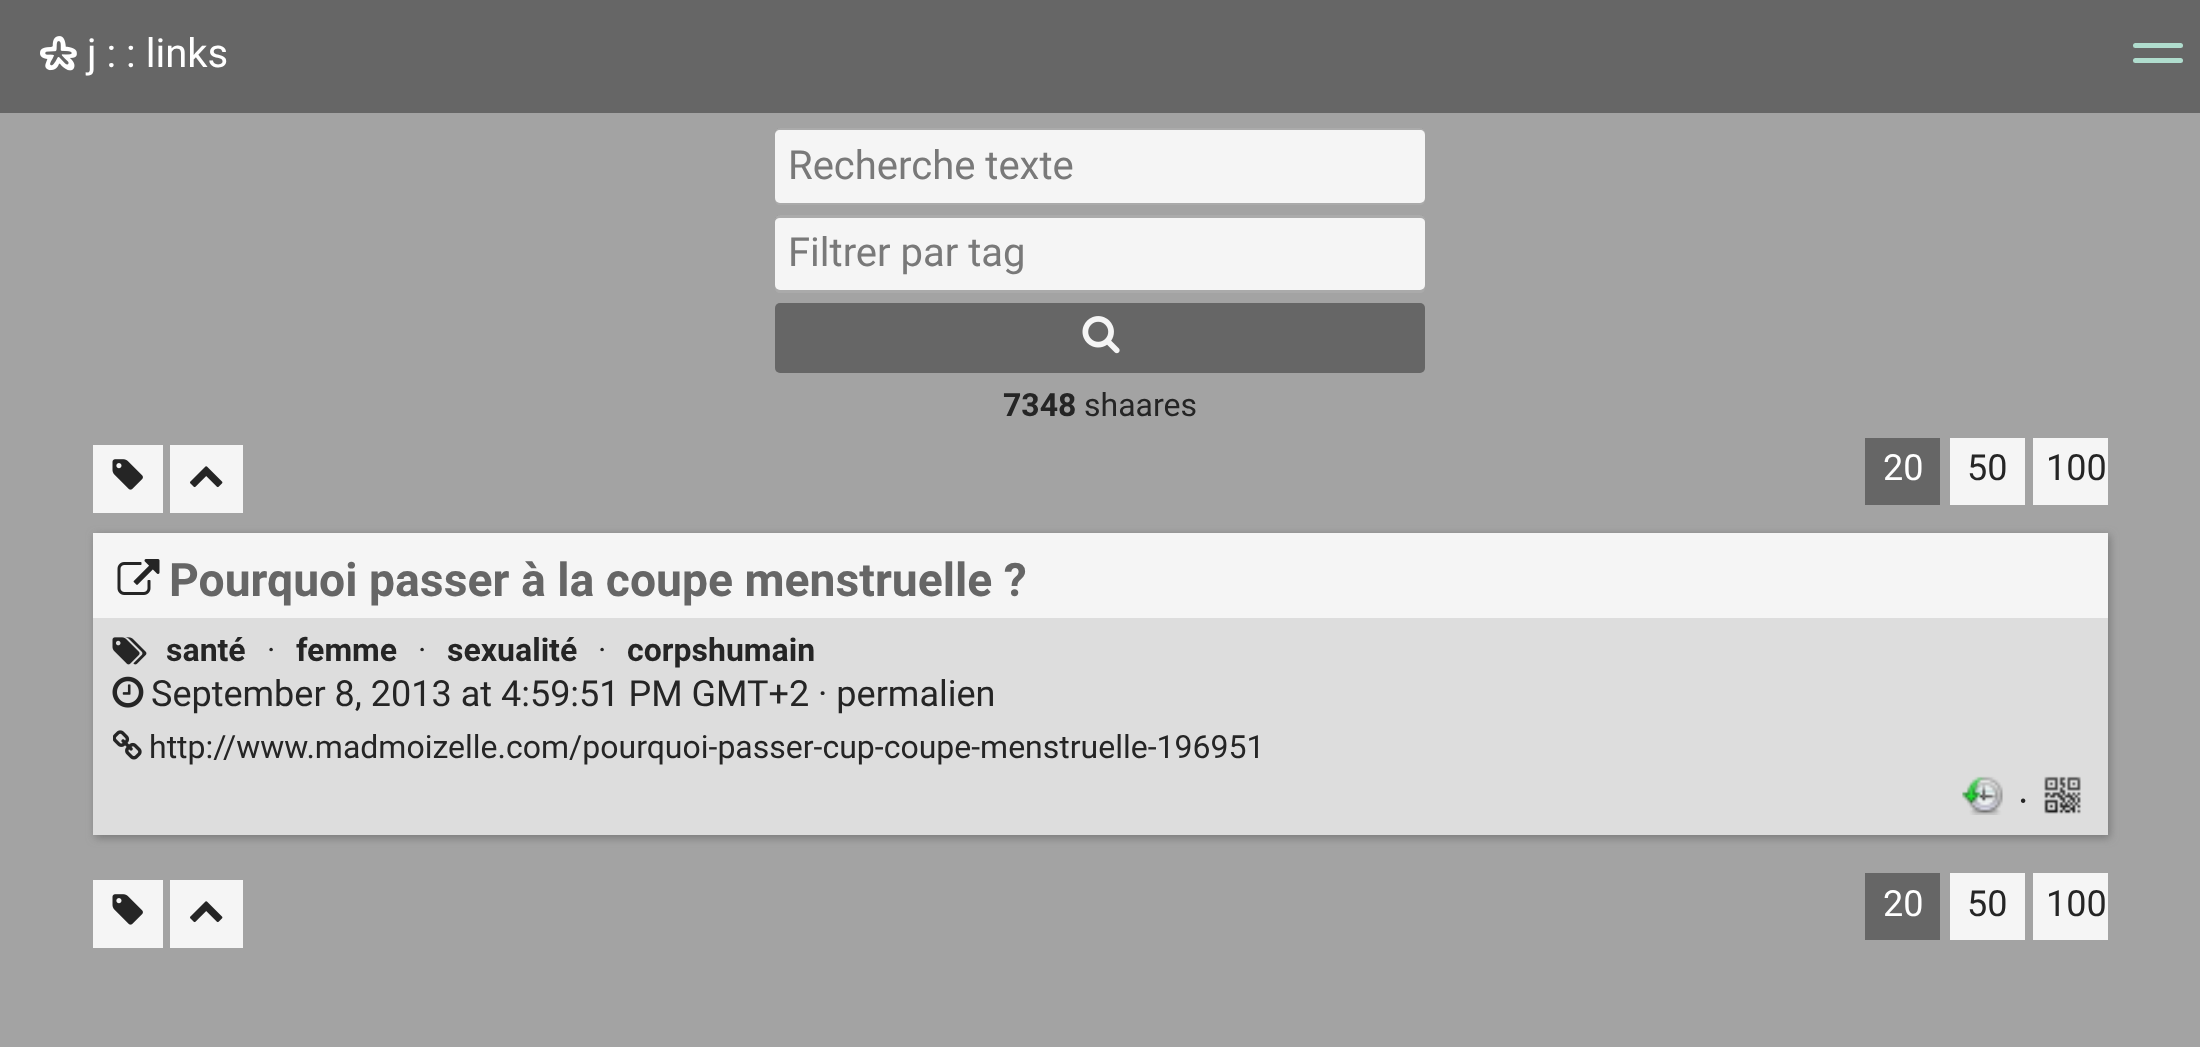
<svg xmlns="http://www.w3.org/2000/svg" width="2200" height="1047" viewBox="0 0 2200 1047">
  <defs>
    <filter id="blur1" x="-50%" y="-200%" width="200%" height="500%"><feGaussianBlur stdDeviation="4"/></filter>
  </defs>
  <rect width="100%" height="100%" fill="#a3a3a3"/>
  <rect x="0" y="0" width="2200" height="113" fill="#666666"/>
  <image x="40" y="36" width="37" height="35" href="img1.png"/>
  <text x="87" y="67" font-family="Roboto" font-size="40" fill="#ffffff">j : : links</text>
  <rect x="2133" y="43" width="50" height="5" rx="2.5" fill="#b0ddce"/>
  <rect x="2133" y="58" width="50" height="5" rx="2.5" fill="#b0ddce"/>
  <path d="M775 198V200C775 203 777 205 780 205H1420C1423 205 1425 203 1425 200V198C1425 200 1423 202 1420 202H780C777 202 775 200 775 198Z" fill="#aaaaaa"/>
  <rect x="775" y="128" width="650" height="75" rx="5" fill="#f5f5f5"/>
  <path d="M780 130H1420C1423 130 1425 132 1425 135V133C1425 130 1423 128 1420 128H780C777 128 775 130 775 133V135C775 132 777 130 780 130Z" fill="#000000" fill-opacity="0.3"/>
  <text x="788" y="179" font-family="Roboto" font-size="40" fill="#797979">Recherche texte</text>
  <path d="M775 285V288C775 291 777 293 780 293H1420C1423 293 1425 291 1425 288V285C1425 288 1423 290 1420 290H780C777 290 775 288 775 285Z" fill="#aaaaaa"/>
  <rect x="775" y="215" width="650" height="75" rx="5" fill="#f5f5f5"/>
  <path d="M780 218H1420C1423 218 1425 220 1425 222V220C1425 217 1423 215 1420 215H780C777 215 775 217 775 220V222C775 220 777 218 780 218Z" fill="#000000" fill-opacity="0.3"/>
  <text x="788" y="266" font-family="Roboto" font-size="40" fill="#797979">Filtrer par tag</text>
  <rect x="775" y="303" width="650" height="70" rx="5" fill="#666666"/>
  <image x="1082" y="316" width="38" height="38" href="img2.png"/>
  <text x="1003" y="416" font-family="Roboto" font-size="32" font-weight="bold" fill="#252525">7348</text>
  <text x="1084" y="416" font-family="Roboto" font-size="32" fill="#252525">shaares</text>
  <rect x="93" y="445" width="70" height="68" fill="#f5f5f5"/>
  <image x="112" y="459" width="31" height="31" href="img3.png"/>
  <rect x="170" y="445" width="73" height="68" fill="#f5f5f5"/>
  <image x="190" y="466" width="33" height="22" href="img4.png"/>
  <rect x="1865" y="438" width="75" height="67" fill="#666666"/>
  <text x="1883" y="480" font-family="Roboto" font-size="36" fill="#ffffff">20</text>
  <rect x="1950" y="438" width="75" height="67" fill="#f5f5f5"/>
  <text x="1967" y="480" font-family="Roboto" font-size="36" fill="#252525">50</text>
  <rect x="2033" y="438" width="75" height="67" fill="#f5f5f5"/>
  <text x="2046" y="480" font-family="Roboto" font-size="36" fill="#252525">100</text>
  <rect x="95" y="535" width="2015" height="303" fill="#797979" filter="url(#blur1)"/>
  <rect x="93" y="533" width="2015" height="85" fill="#f5f5f5"/>
  <image x="117" y="559" width="43" height="36" href="img5.png"/>
  <text x="169" y="596" font-family="Roboto" font-size="46.25" font-weight="bold" fill="#666666">Pourquoi passer à la coupe menstruelle ?</text>
  <rect x="93" y="618" width="2015" height="217" fill="#dddddd"/>
  <image x="112" y="637" width="35" height="28" href="img6.png"/>
  <text x="166" y="661" font-family="Roboto" font-size="32" font-weight="bold" fill="#252525">santé</text>
  <text x="267" y="661" font-family="Roboto" font-size="32" fill="#252525">·</text>
  <text x="296" y="661" font-family="Roboto" font-size="32" font-weight="bold" fill="#252525">femme</text>
  <text x="418" y="661" font-family="Roboto" font-size="32" fill="#252525">·</text>
  <text x="447" y="661" font-family="Roboto" font-size="32" font-weight="bold" fill="#252525">sexualité</text>
  <text x="598" y="661" font-family="Roboto" font-size="32" fill="#252525">·</text>
  <text x="627" y="661" font-family="Roboto" font-size="32" font-weight="bold" fill="#252525">corpshumain</text>
  <image x="112" y="676" width="32" height="32" href="img7.png"/>
  <text x="151" y="706" font-family="Roboto" font-size="36" fill="#252525">September 8, 2013 at 4:59:51 PM GMT+2</text>
  <text x="818" y="706" font-family="Roboto" font-size="36" fill="#252525">· permalien</text>
  <image x="113" y="730" width="29" height="30" href="img8.png"/>
  <text x="149" y="758" font-family="Roboto" font-size="32" fill="#252525">http://www.madmoizelle.com/pourquoi-passer-cup-coupe-menstruelle-196951</text>
  <image x="1962" y="776" width="41" height="39" href="img9.png"/>
  <text x="2018" y="815" font-family="Roboto" font-size="40" fill="#252525">·</text>
  <image x="2044" y="776" width="37" height="38" href="img10.png"/>
  <rect x="93" y="880" width="70" height="68" fill="#f5f5f5"/>
  <image x="112" y="894" width="31" height="31" href="img3.png"/>
  <rect x="170" y="880" width="73" height="68" fill="#f5f5f5"/>
  <image x="190" y="901" width="33" height="22" href="img4.png"/>
  <rect x="1865" y="873" width="75" height="67" fill="#666666"/>
  <text x="1883" y="916" font-family="Roboto" font-size="36" fill="#ffffff">20</text>
  <rect x="1950" y="873" width="75" height="67" fill="#f5f5f5"/>
  <text x="1967" y="916" font-family="Roboto" font-size="36" fill="#252525">50</text>
  <rect x="2033" y="873" width="75" height="67" fill="#f5f5f5"/>
  <text x="2046" y="916" font-family="Roboto" font-size="36" fill="#252525">100</text>
</svg>
